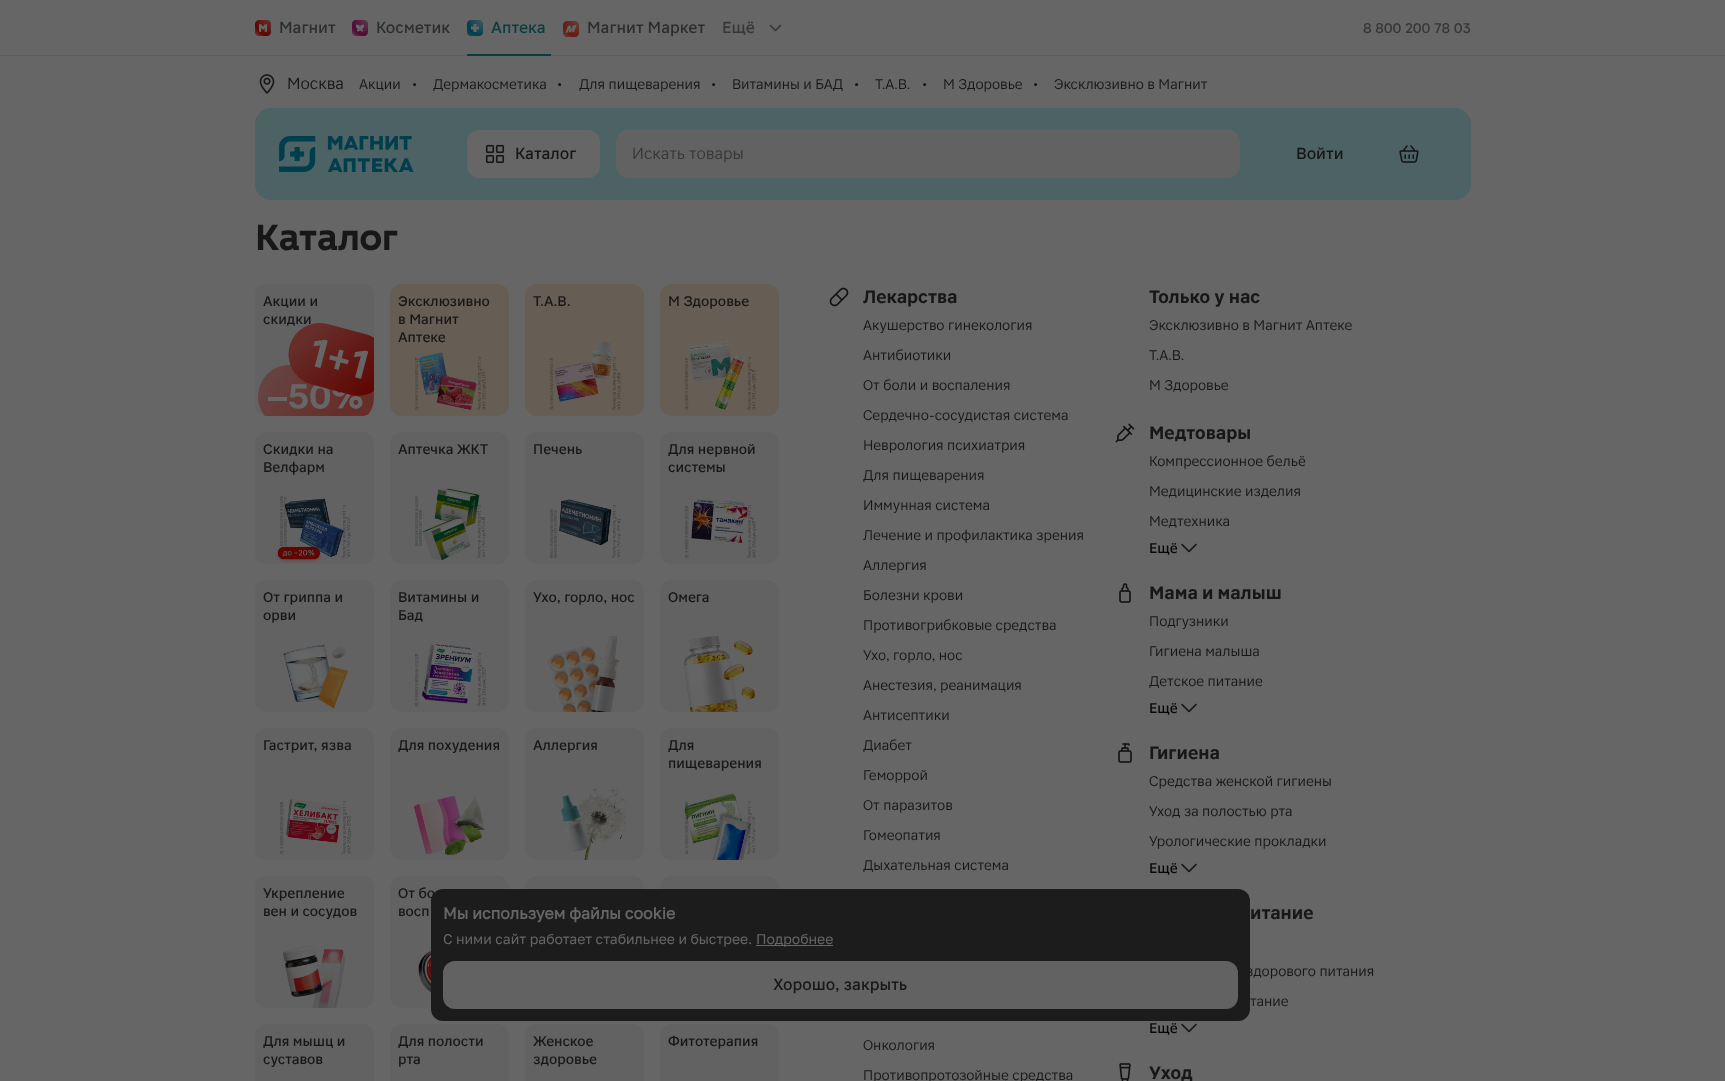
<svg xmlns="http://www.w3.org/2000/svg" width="1725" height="1081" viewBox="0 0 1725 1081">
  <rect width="100%" height="100%" fill="#666666"/>
  <image x="255" y="20" width="16" height="16" href="img1.png"/>
  <text x="279" y="33" font-family="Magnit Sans" font-size="16" font-weight="500" fill="#2d2d2d">Магнит</text>
  <image x="352" y="20" width="16" height="16" href="img2.png"/>
  <text x="376" y="33" font-family="Magnit Sans" font-size="16" font-weight="500" fill="#2d2d2d">Косметик</text>
  <image x="467" y="20" width="16" height="16" href="img3.png"/>
  <text x="491" y="33" font-family="Magnit Sans" font-size="16" font-weight="500" fill="#083d42">Аптека</text>
  <rect x="0" y="55" width="1725" height="1" fill="#5d5d5c"/>
  <rect x="467" y="54" width="84" height="2" fill="#083d42"/>
  <image x="563" y="21" width="16" height="16" href="img4.png"/>
  <text x="587" y="33" font-family="Magnit Sans" font-size="16" font-weight="500" fill="#2d2d2d">Магнит Маркет</text>
  <text x="722" y="33" font-family="Magnit Sans" font-size="16" font-weight="500" fill="#383737">Ещё</text>
  <image x="769" y="24" width="13" height="8" href="img5.png"/>
  <text x="1363" y="33" font-family="Magnit Sans" font-size="14" font-weight="500" fill="#383737">8 800 200 78 03</text>
  <image x="259" y="74" width="16" height="20" href="img6.png"/>
  <text x="287" y="89" font-family="Magnit Sans" font-size="16" fill="#181717">Москва</text>
  <text x="359" y="89" font-family="Magnit Sans" font-size="14" fill="#181717">Акции</text>
  <text x="412" y="89" font-family="Magnit Sans" font-size="14" fill="#181717">•</text>
  <text x="433" y="89" font-family="Magnit Sans" font-size="14" fill="#181717">Дермакосметика</text>
  <text x="557" y="89" font-family="Magnit Sans" font-size="14" fill="#181717">•</text>
  <text x="579" y="89" font-family="Magnit Sans" font-size="14" fill="#181717">Для пищеварения</text>
  <text x="711" y="89" font-family="Magnit Sans" font-size="14" fill="#181717">•</text>
  <text x="732" y="89" font-family="Magnit Sans" font-size="14" fill="#181717">Витамины и БАД</text>
  <text x="854" y="89" font-family="Magnit Sans" font-size="14" fill="#181717">•</text>
  <text x="875" y="89" font-family="Magnit Sans" font-size="14" fill="#181717">T.A.B.</text>
  <text x="922" y="89" font-family="Magnit Sans" font-size="14" fill="#181717">•</text>
  <text x="943" y="89" font-family="Magnit Sans" font-size="14" fill="#181717">М Здоровье</text>
  <text x="1033" y="89" font-family="Magnit Sans" font-size="14" fill="#181717">•</text>
  <text x="1054" y="89" font-family="Magnit Sans" font-size="14" fill="#181717">Эксклюзивно в Магнит</text>
  <rect x="255" y="108" width="1216" height="92" rx="16" fill="#4d6265"/>
  <image x="279" y="136" width="135" height="36" href="img7.png"/>
  <rect x="467" y="130" width="133" height="48" rx="12" fill="#666666"/>
  <image x="485" y="144" width="20" height="20" href="img8.png"/>
  <text x="515" y="159" font-family="Magnit Sans" font-size="16" font-weight="500" fill="#181717">Каталог</text>
  <rect x="616" y="130" width="624" height="48" rx="12" fill="#626262"/>
  <text x="632" y="159" font-family="Magnit Sans" font-size="16" fill="#383737">Искать товары</text>
  <text x="1296" y="159" font-family="Magnit Sans" font-size="16" font-weight="500" fill="#181717">Войти</text>
  <image x="1399" y="145" width="20" height="18" href="img9.png"/>
  <text x="255" y="250" font-family="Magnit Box" font-size="36" font-weight="bold" fill="#181717">Каталог</text>
  <rect x="255" y="284" width="119" height="132" rx="12" fill="#626262"/>
  <image x="258" y="323" width="116" height="93" href="img10.png"/>
  <text x="263" y="306" font-family="Magnit Sans" font-size="14" font-weight="500" fill="#181717">Акции и</text>
  <text x="263" y="324" font-family="Magnit Sans" font-size="14" font-weight="500" fill="#181717">скидки</text>
  <rect x="390" y="284" width="119" height="132" rx="12" fill="#665e55"/>
  <image x="414" y="351" width="73" height="60" href="img11.png"/>
  <text x="398" y="306" font-family="Magnit Sans" font-size="14" font-weight="500" fill="#181717">Эксклюзивно</text>
  <text x="398" y="324" font-family="Magnit Sans" font-size="14" font-weight="500" fill="#181717">в Магнит</text>
  <text x="398" y="342" font-family="Magnit Sans" font-size="14" font-weight="500" fill="#181717">Аптеке</text>
  <rect x="525" y="284" width="119" height="132" rx="12" fill="#665e55"/>
  <image x="549" y="341" width="73" height="70" href="img12.png"/>
  <text x="533" y="306" font-family="Magnit Sans" font-size="14" font-weight="500" fill="#181717">T.A.B.</text>
  <rect x="660" y="284" width="119" height="132" rx="12" fill="#665e55"/>
  <image x="684" y="341" width="73" height="70" href="img13.png"/>
  <text x="668" y="306" font-family="Magnit Sans" font-size="14" font-weight="500" fill="#181717">М Здоровье</text>
  <rect x="255" y="432" width="119" height="132" rx="12" fill="#626262"/>
  <image x="276" y="496" width="75" height="67" href="img14.png"/>
  <text x="263" y="454" font-family="Magnit Sans" font-size="14" font-weight="500" fill="#181717">Скидки на</text>
  <text x="263" y="472" font-family="Magnit Sans" font-size="14" font-weight="500" fill="#181717">Велфарм</text>
  <rect x="390" y="432" width="119" height="132" rx="12" fill="#626262"/>
  <image x="414" y="488" width="72" height="73" href="img15.png"/>
  <text x="398" y="454" font-family="Magnit Sans" font-size="14" font-weight="500" fill="#181717">Аптечка ЖКТ</text>
  <rect x="525" y="432" width="119" height="132" rx="12" fill="#626262"/>
  <image x="549" y="499" width="72" height="60" href="img16.png"/>
  <text x="533" y="454" font-family="Magnit Sans" font-size="14" font-weight="500" fill="#181717">Печень</text>
  <rect x="660" y="432" width="119" height="132" rx="12" fill="#626262"/>
  <image x="684" y="498" width="73" height="61" href="img17.png"/>
  <text x="668" y="454" font-family="Magnit Sans" font-size="14" font-weight="500" fill="#181717">Для нервной</text>
  <text x="668" y="472" font-family="Magnit Sans" font-size="14" font-weight="500" fill="#181717">системы</text>
  <rect x="255" y="580" width="119" height="132" rx="12" fill="#626262"/>
  <image x="283" y="644" width="65" height="65" href="img18.png"/>
  <text x="263" y="602" font-family="Magnit Sans" font-size="14" font-weight="500" fill="#181717">От гриппа и</text>
  <text x="263" y="620" font-family="Magnit Sans" font-size="14" font-weight="500" fill="#181717">орви</text>
  <rect x="390" y="580" width="119" height="132" rx="12" fill="#626262"/>
  <image x="414" y="642" width="73" height="65" href="img19.png"/>
  <text x="398" y="602" font-family="Magnit Sans" font-size="14" font-weight="500" fill="#181717">Витамины и</text>
  <text x="398" y="620" font-family="Magnit Sans" font-size="14" font-weight="500" fill="#181717">Бад</text>
  <rect x="525" y="580" width="119" height="132" rx="12" fill="#626262"/>
  <image x="548" y="635" width="72" height="77" href="img20.png"/>
  <text x="533" y="602" font-family="Magnit Sans" font-size="14" font-weight="500" fill="#181717">Ухо, горло, нос</text>
  <rect x="660" y="580" width="119" height="132" rx="12" fill="#626262"/>
  <image x="684" y="636" width="72" height="76" href="img21.png"/>
  <text x="668" y="602" font-family="Magnit Sans" font-size="14" font-weight="500" fill="#181717">Омега</text>
  <rect x="255" y="728" width="119" height="132" rx="12" fill="#626262"/>
  <image x="279" y="799" width="73" height="56" href="img22.png"/>
  <text x="263" y="750" font-family="Magnit Sans" font-size="14" font-weight="500" fill="#181717">Гастрит, язва</text>
  <rect x="390" y="728" width="119" height="132" rx="12" fill="#626262"/>
  <image x="412" y="795" width="73" height="61" href="img23.png"/>
  <text x="398" y="750" font-family="Magnit Sans" font-size="14" font-weight="500" fill="#181717">Для похудения</text>
  <rect x="525" y="728" width="119" height="132" rx="12" fill="#626262"/>
  <image x="561" y="787" width="65" height="73" href="img24.png"/>
  <text x="533" y="750" font-family="Magnit Sans" font-size="14" font-weight="500" fill="#181717">Аллергия</text>
  <rect x="660" y="728" width="119" height="132" rx="12" fill="#626262"/>
  <image x="684" y="793" width="72" height="67" href="img25.png"/>
  <text x="668" y="750" font-family="Magnit Sans" font-size="14" font-weight="500" fill="#181717">Для</text>
  <text x="668" y="768" font-family="Magnit Sans" font-size="14" font-weight="500" fill="#181717">пищеварения</text>
  <rect x="255" y="876" width="119" height="132" rx="12" fill="#626262"/>
  <image x="283" y="945" width="62" height="63" href="img26.png"/>
  <text x="263" y="898" font-family="Magnit Sans" font-size="14" font-weight="500" fill="#181717">Укрепление</text>
  <text x="263" y="916" font-family="Magnit Sans" font-size="14" font-weight="500" fill="#181717">вен и сосудов</text>
  <rect x="390" y="876" width="119" height="132" rx="12" fill="#626262"/>
  <image x="418" y="948" width="13" height="60" href="img27.png"/>
  <text x="398" y="898" font-family="Magnit Sans" font-size="14" font-weight="500" fill="#181717">От бо</text>
  <text x="398" y="916" font-family="Magnit Sans" font-size="14" font-weight="500" fill="#181717">восп</text>
  <rect x="525" y="876" width="119" height="132" rx="12" fill="#626262"/>
  <rect x="660" y="876" width="119" height="132" rx="12" fill="#626262"/>
  <rect x="255" y="1024" width="119" height="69" rx="12" fill="#626262"/>
  <text x="263" y="1046" font-family="Magnit Sans" font-size="14" font-weight="500" fill="#181717">Для мышц и</text>
  <text x="263" y="1064" font-family="Magnit Sans" font-size="14" font-weight="500" fill="#181717">суставов</text>
  <rect x="390" y="1024" width="119" height="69" rx="12" fill="#626262"/>
  <text x="398" y="1046" font-family="Magnit Sans" font-size="14" font-weight="500" fill="#181717">Для полости</text>
  <text x="398" y="1064" font-family="Magnit Sans" font-size="14" font-weight="500" fill="#181717">рта</text>
  <rect x="525" y="1024" width="119" height="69" rx="12" fill="#626262"/>
  <text x="533" y="1046" font-family="Magnit Sans" font-size="14" font-weight="500" fill="#181717">Женское</text>
  <text x="533" y="1064" font-family="Magnit Sans" font-size="14" font-weight="500" fill="#181717">здоровье</text>
  <rect x="660" y="1024" width="119" height="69" rx="12" fill="#626262"/>
  <text x="668" y="1046" font-family="Magnit Sans" font-size="14" font-weight="500" fill="#181717">Фитотерапия</text>
  <image x="829" y="287" width="20" height="20" href="img28.png"/>
  <text x="863" y="303" font-family="Magnit Sans" font-size="18" font-weight="bold" fill="#181717">Лекарства</text>
  <text x="863" y="330" font-family="Magnit Sans" font-size="14" fill="#181717">Акушерство гинекология</text>
  <text x="863" y="360" font-family="Magnit Sans" font-size="14" fill="#181717">Антибиотики</text>
  <text x="863" y="390" font-family="Magnit Sans" font-size="14" fill="#181717">От боли и воспаления</text>
  <text x="863" y="420" font-family="Magnit Sans" font-size="14" fill="#181717">Сердечно-сосудистая система</text>
  <text x="863" y="450" font-family="Magnit Sans" font-size="14" fill="#181717">Неврология психиатрия</text>
  <text x="863" y="480" font-family="Magnit Sans" font-size="14" fill="#181717">Для пищеварения</text>
  <text x="863" y="510" font-family="Magnit Sans" font-size="14" fill="#181717">Иммунная система</text>
  <text x="863" y="540" font-family="Magnit Sans" font-size="14" fill="#181717">Лечение и профилактика зрения</text>
  <text x="863" y="570" font-family="Magnit Sans" font-size="14" fill="#181717">Аллергия</text>
  <text x="863" y="600" font-family="Magnit Sans" font-size="14" fill="#181717">Болезни крови</text>
  <text x="863" y="630" font-family="Magnit Sans" font-size="14" fill="#181717">Противогрибковые средства</text>
  <text x="863" y="660" font-family="Magnit Sans" font-size="14" fill="#181717">Ухо, горло, нос</text>
  <text x="863" y="690" font-family="Magnit Sans" font-size="14" fill="#181717">Анестезия, реанимация</text>
  <text x="863" y="720" font-family="Magnit Sans" font-size="14" fill="#181717">Антисептики</text>
  <text x="863" y="750" font-family="Magnit Sans" font-size="14" fill="#181717">Диабет</text>
  <text x="863" y="780" font-family="Magnit Sans" font-size="14" fill="#181717">Геморрой</text>
  <text x="863" y="810" font-family="Magnit Sans" font-size="14" fill="#181717">От паразитов</text>
  <text x="863" y="840" font-family="Magnit Sans" font-size="14" fill="#181717">Гомеопатия</text>
  <text x="863" y="870" font-family="Magnit Sans" font-size="14" fill="#181717">Дыхательная система</text>
  <text x="863" y="1050" font-family="Magnit Sans" font-size="14" fill="#181717">Онкология</text>
  <text x="863" y="1080" font-family="Magnit Sans" font-size="14" fill="#181717">Противопротозойные средства</text>
  <text x="1149" y="303" font-family="Magnit Sans" font-size="18" font-weight="bold" fill="#181717">Только у нас</text>
  <text x="1149" y="330" font-family="Magnit Sans" font-size="14" fill="#181717">Эксклюзивно в Магнит Аптеке</text>
  <text x="1149" y="360" font-family="Magnit Sans" font-size="14" fill="#181717">T.A.B.</text>
  <text x="1149" y="390" font-family="Magnit Sans" font-size="14" fill="#181717">М Здоровье</text>
  <image x="1115" y="423" width="20" height="20" href="img29.png"/>
  <text x="1149" y="439" font-family="Magnit Sans" font-size="18" font-weight="bold" fill="#181717">Медтовары</text>
  <text x="1149" y="466" font-family="Magnit Sans" font-size="14" fill="#181717">Компрессионное бельё</text>
  <text x="1149" y="496" font-family="Magnit Sans" font-size="14" fill="#181717">Медицинские изделия</text>
  <text x="1149" y="526" font-family="Magnit Sans" font-size="14" fill="#181717">Медтехника</text>
  <text x="1149" y="553" font-family="Magnit Sans" font-size="14" font-weight="500" fill="#080808">Ещё</text>
  <image x="1181" y="543" width="16" height="10" href="img30.png"/>
  <image x="1119" y="583" width="12" height="20" href="img31.png"/>
  <text x="1149" y="599" font-family="Magnit Sans" font-size="18" font-weight="bold" fill="#181717">Мама и малыш</text>
  <text x="1149" y="626" font-family="Magnit Sans" font-size="14" fill="#181717">Подгузники</text>
  <text x="1149" y="656" font-family="Magnit Sans" font-size="14" fill="#181717">Гигиена малыша</text>
  <text x="1149" y="686" font-family="Magnit Sans" font-size="14" fill="#181717">Детское питание</text>
  <text x="1149" y="713" font-family="Magnit Sans" font-size="14" font-weight="500" fill="#080808">Ещё</text>
  <image x="1181" y="703" width="16" height="10" href="img30.png"/>
  <image x="1118" y="743" width="14" height="20" href="img32.png"/>
  <text x="1149" y="759" font-family="Magnit Sans" font-size="18" font-weight="bold" fill="#181717">Гигиена</text>
  <text x="1149" y="786" font-family="Magnit Sans" font-size="14" fill="#181717">Средства женской гигиены</text>
  <text x="1149" y="816" font-family="Magnit Sans" font-size="14" fill="#181717">Уход за полостью рта</text>
  <text x="1149" y="846" font-family="Magnit Sans" font-size="14" fill="#181717">Урологические прокладки</text>
  <text x="1149" y="873" font-family="Magnit Sans" font-size="14" font-weight="500" fill="#080808">Ещё</text>
  <image x="1181" y="863" width="16" height="10" href="img30.png"/>
  <text x="1250" y="919" font-family="Magnit Sans" font-size="18" font-weight="bold" fill="#181717">итание</text>
  <text x="1246" y="976" font-family="Magnit Sans" font-size="14" fill="#181717">здорового питания</text>
  <text x="1250" y="1006" font-family="Magnit Sans" font-size="14" fill="#181717">тание</text>
  <text x="1149" y="1033" font-family="Magnit Sans" font-size="14" font-weight="500" fill="#080808">Ещё</text>
  <image x="1181" y="1023" width="16" height="10" href="img30.png"/>
  <image x="1119" y="1063" width="12" height="18" href="img33.png"/>
  <text x="1149" y="1079" font-family="Magnit Sans" font-size="18" font-weight="bold" fill="#181717">Уход</text>
  <rect x="431" y="889" width="819" height="132" rx="12" fill="#1c1c1c"/>
  <text x="443" y="919" font-family="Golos" font-size="16" font-weight="bold" fill="#666666">Мы используем файлы cookie</text>
  <text x="443" y="944" font-family="Golos" font-size="14" fill="#666666">С ними сайт работает стабильнее и быстрее.</text>
  <rect x="756" y="945" width="77" height="1" fill="#666666"/>
  <text x="756" y="944" font-family="Golos" font-size="14" fill="#666666">Подробнее</text>
  <rect x="443" y="961" width="795" height="48" rx="12" fill="#626262"/>
  <text x="773" y="990" font-family="Magnit Sans" font-size="16" font-weight="500" fill="#181717">Хорошо, закрыть</text>
</svg>
